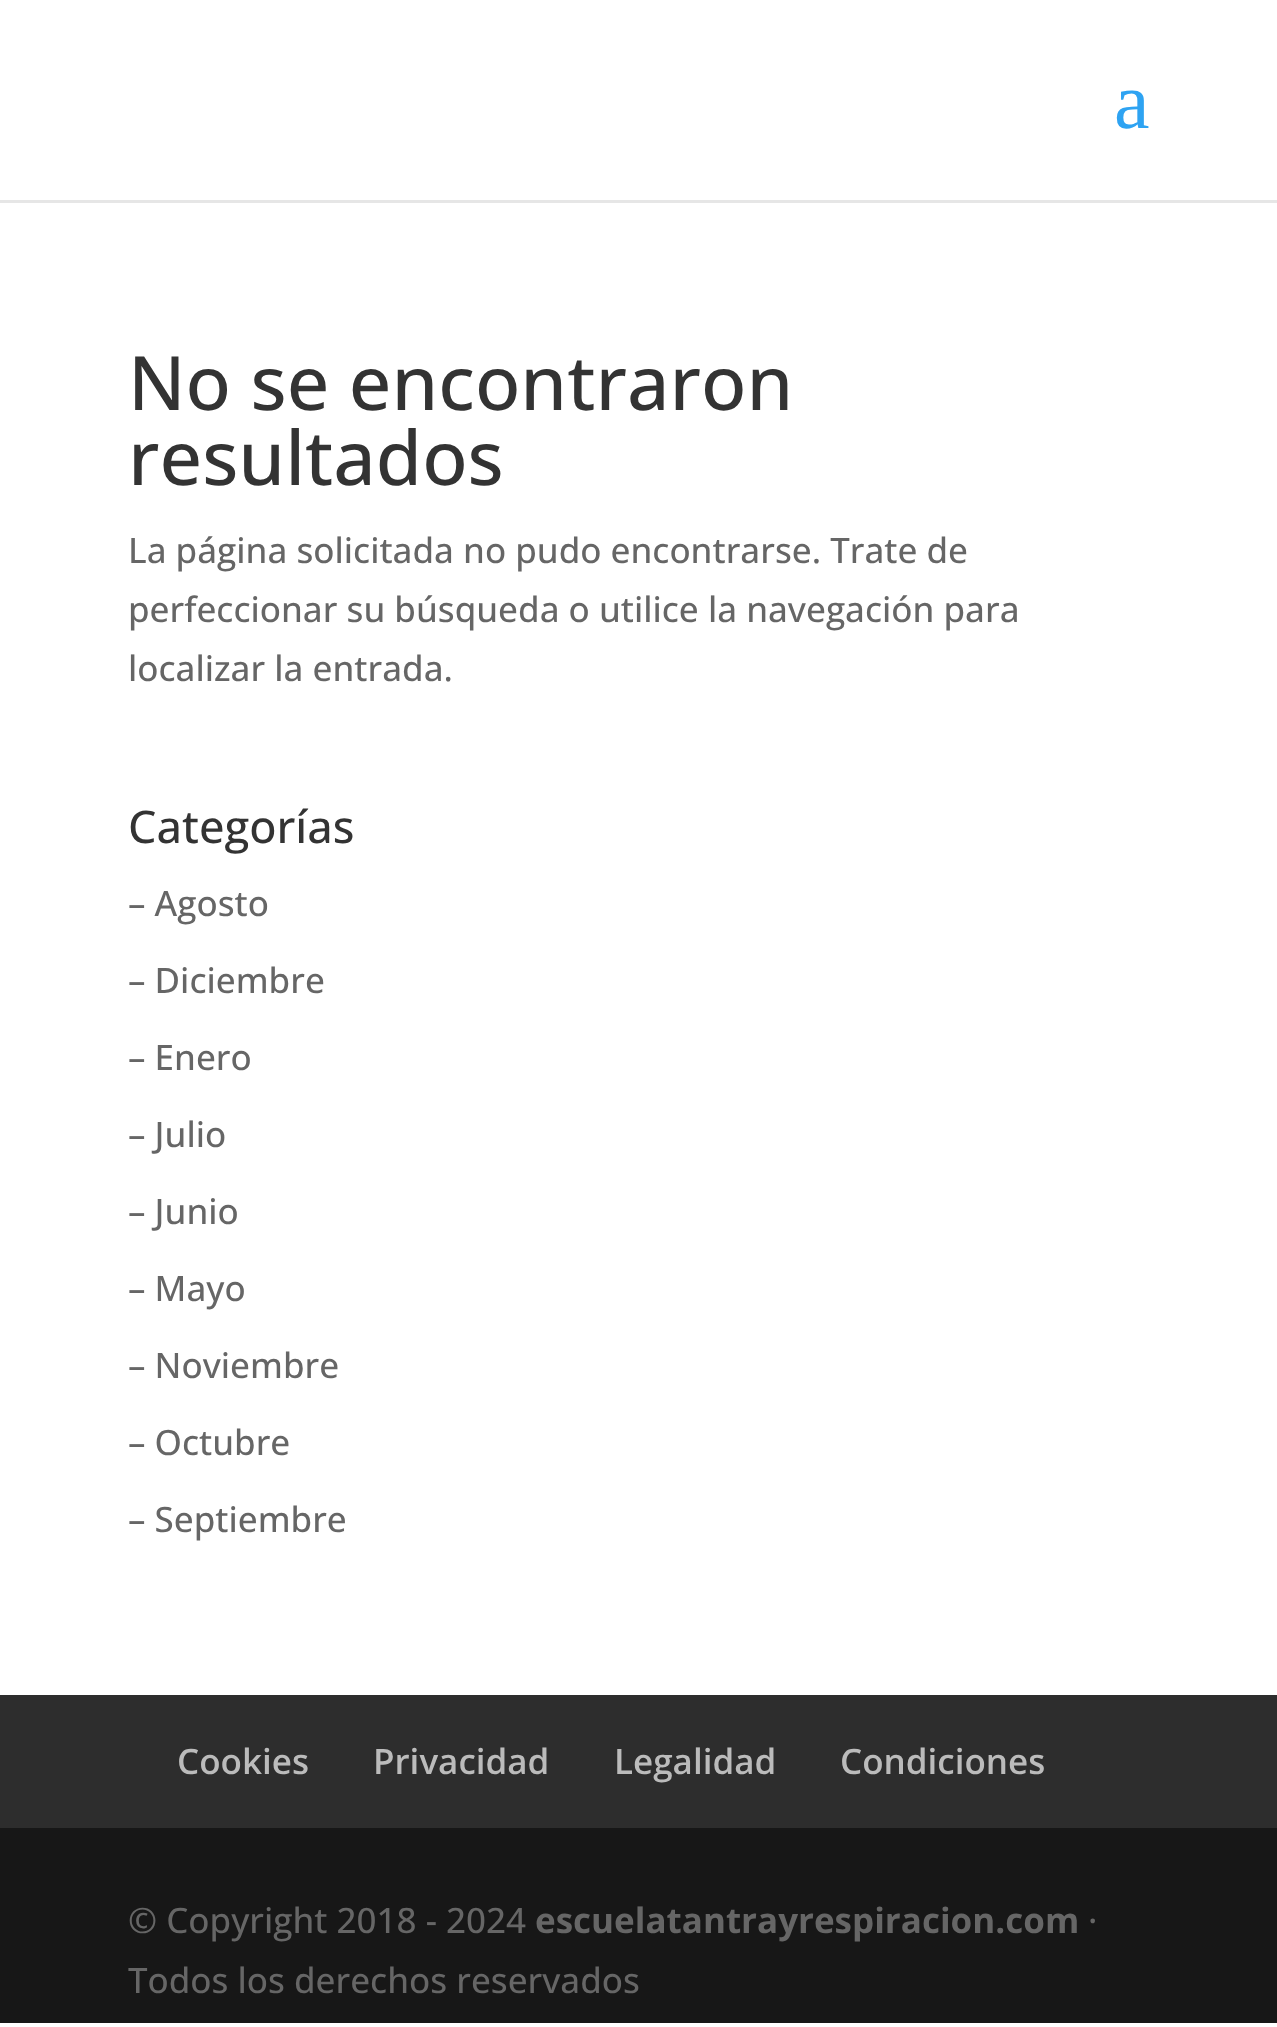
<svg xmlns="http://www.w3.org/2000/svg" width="1277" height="2027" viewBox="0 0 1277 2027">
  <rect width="100%" height="100%" fill="#ffffff"/>
  <path d="M0 200V203H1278V3V200Z" fill="#e6e6e6"/>
  <text x="1114" y="128" font-family="Liberation Serif" font-size="80" fill="#2ea3f2">a</text>
  <text x="128" y="410" font-family="Open Sans" font-size="75" font-weight="500" fill="#333333">No se encontraron</text>
  <text x="128" y="485" font-family="Open Sans" font-size="75" font-weight="500" fill="#333333">resultados</text>
  <text x="128" y="563" font-family="Open Sans" font-size="35" font-weight="500" fill="#666666">La página solicitada no pudo encontrarse. Trate de</text>
  <text x="128" y="622" font-family="Open Sans" font-size="35" font-weight="500" fill="#666666">perfeccionar su búsqueda o utilice la navegación para</text>
  <text x="128" y="681" font-family="Open Sans" font-size="35" font-weight="500" fill="#666666">localizar la entrada.</text>
  <text x="128" y="843" font-family="Open Sans" font-size="45" font-weight="500" fill="#333333">Categorías</text>
  <text x="128" y="916" font-family="Open Sans" font-size="35" font-weight="500" fill="#666666">– Agosto</text>
  <text x="128" y="993" font-family="Open Sans" font-size="35" font-weight="500" fill="#666666">– Diciembre</text>
  <text x="128" y="1070" font-family="Open Sans" font-size="35" font-weight="500" fill="#666666">– Enero</text>
  <text x="128" y="1147" font-family="Open Sans" font-size="35" font-weight="500" fill="#666666">– Julio</text>
  <text x="128" y="1224" font-family="Open Sans" font-size="35" font-weight="500" fill="#666666">– Junio</text>
  <text x="128" y="1301" font-family="Open Sans" font-size="35" font-weight="500" fill="#666666">– Mayo</text>
  <text x="128" y="1378" font-family="Open Sans" font-size="35" font-weight="500" fill="#666666">– Noviembre</text>
  <text x="128" y="1455" font-family="Open Sans" font-size="35" font-weight="500" fill="#666666">– Octubre</text>
  <text x="128" y="1532" font-family="Open Sans" font-size="35" font-weight="500" fill="#666666">– Septiembre</text>
  <rect x="0" y="1695" width="1277" height="133" fill="#2d2d2d"/>
  <text x="177" y="1774" font-family="Open Sans" font-size="35" font-weight="600" fill="#bbbbbb">Cookies</text>
  <text x="373" y="1774" font-family="Open Sans" font-size="35" font-weight="600" fill="#bbbbbb">Privacidad</text>
  <text x="614" y="1774" font-family="Open Sans" font-size="35" font-weight="600" fill="#bbbbbb">Legalidad</text>
  <text x="840" y="1774" font-family="Open Sans" font-size="35" font-weight="600" fill="#bbbbbb">Condiciones</text>
  <rect x="0" y="1828" width="1277" height="195" fill="#171717"/>
  <text x="128" y="1933" font-family="Open Sans" font-size="35" font-weight="500" fill="#666666">© Copyright 2018 - 2024</text>
  <text x="535" y="1933" font-family="Open Sans" font-size="35" font-weight="bold" fill="#666666">escuelatantrayrespiracion.com</text>
  <text x="1088" y="1933" font-family="Open Sans" font-size="35" font-weight="500" fill="#666666">·</text>
  <text x="128" y="1993" font-family="Open Sans" font-size="35" font-weight="500" fill="#666666">Todos los derechos reservados</text>
</svg>
